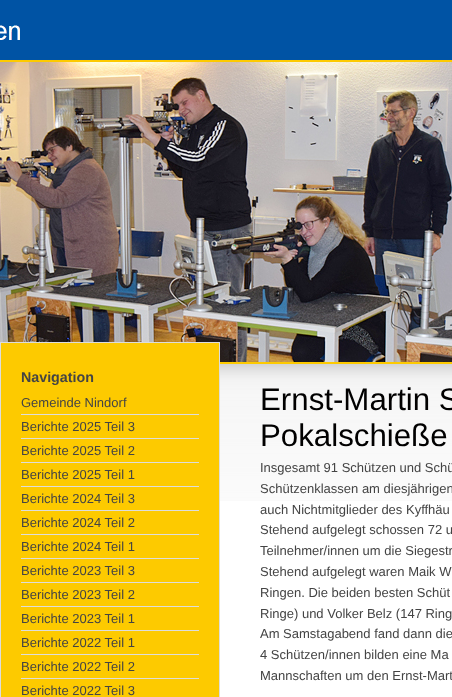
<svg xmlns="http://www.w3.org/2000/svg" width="452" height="697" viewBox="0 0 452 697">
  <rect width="100%" height="100%" fill="#ffffff"/>
  <image x="220" y="364" width="232" height="137" href="img1.png"/>
  <rect x="0" y="0" width="452" height="60" fill="#0053a4"/>
  <image x="0" y="25" width="20" height="15" href="img2.png"/>
  <image x="0" y="62" width="452" height="300" href="img3.png"/>
  <rect x="0" y="60" width="452" height="2" fill="#fdca00"/>
  <rect x="220" y="362" width="232" height="2" fill="#fdca00"/>
  <rect x="0.5" y="342.5" width="219" height="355" fill="#fdca00" stroke="#dddddd"/>
  <text x="21" y="382" font-family="Liberation Sans" font-size="14.25" font-weight="bold" fill="#444444">Navigation</text>
  <rect x="21" y="414" width="178" height="1" fill="#dddddd"/>
  <text x="21" y="407" font-family="Liberation Sans" font-size="13" fill="#444444">Gemeinde Nindorf</text>
  <rect x="21" y="438" width="178" height="1" fill="#dddddd"/>
  <text x="21" y="431" font-family="Liberation Sans" font-size="13" fill="#444444">Berichte 2025 Teil 3</text>
  <rect x="21" y="462" width="178" height="1" fill="#dddddd"/>
  <text x="21" y="455" font-family="Liberation Sans" font-size="13" fill="#444444">Berichte 2025 Teil 2</text>
  <rect x="21" y="486" width="178" height="1" fill="#dddddd"/>
  <text x="21" y="479" font-family="Liberation Sans" font-size="13" fill="#444444">Berichte 2025 Teil 1</text>
  <rect x="21" y="510" width="178" height="1" fill="#dddddd"/>
  <text x="21" y="503" font-family="Liberation Sans" font-size="13" fill="#444444">Berichte 2024 Teil 3</text>
  <rect x="21" y="534" width="178" height="1" fill="#dddddd"/>
  <text x="21" y="527" font-family="Liberation Sans" font-size="13" fill="#444444">Berichte 2024 Teil 2</text>
  <rect x="21" y="558" width="178" height="1" fill="#dddddd"/>
  <text x="21" y="551" font-family="Liberation Sans" font-size="13" fill="#444444">Berichte 2024 Teil 1</text>
  <rect x="21" y="582" width="178" height="1" fill="#dddddd"/>
  <text x="21" y="575" font-family="Liberation Sans" font-size="13" fill="#444444">Berichte 2023 Teil 3</text>
  <rect x="21" y="606" width="178" height="1" fill="#dddddd"/>
  <text x="21" y="599" font-family="Liberation Sans" font-size="13" fill="#444444">Berichte 2023 Teil 2</text>
  <rect x="21" y="630" width="178" height="1" fill="#dddddd"/>
  <text x="21" y="623" font-family="Liberation Sans" font-size="13" fill="#444444">Berichte 2023 Teil 1</text>
  <rect x="21" y="654" width="178" height="1" fill="#dddddd"/>
  <text x="21" y="647" font-family="Liberation Sans" font-size="13" fill="#444444">Berichte 2022 Teil 1</text>
  <rect x="21" y="678" width="178" height="1" fill="#dddddd"/>
  <text x="21" y="671" font-family="Liberation Sans" font-size="13" fill="#444444">Berichte 2022 Teil 2</text>
  <text x="21" y="695" font-family="Liberation Sans" font-size="13" fill="#444444">Berichte 2022 Teil 3</text>
  <text x="260" y="410" font-family="Liberation Sans" font-size="31.25" fill="#010000">Ernst-Martin S</text>
  <text x="260" y="446" font-family="Liberation Sans" font-size="31.25" fill="#010000">Pokalschieße</text>
  <text x="260" y="472" font-family="Liberation Sans" font-size="13" fill="#444444">Insgesamt 91 Schützen und Schü</text>
  <text x="260" y="493" font-family="Liberation Sans" font-size="13" fill="#444444">Schützenklassen am diesjährigen</text>
  <text x="260" y="514" font-family="Liberation Sans" font-size="13" fill="#444444">auch Nichtmitglieder des Kyffhäu</text>
  <text x="260" y="534" font-family="Liberation Sans" font-size="13" fill="#444444">Stehend aufgelegt schossen 72 u</text>
  <text x="260" y="555" font-family="Liberation Sans" font-size="13" fill="#444444">Teilnehmer/innen um die Siegestr</text>
  <text x="260" y="576" font-family="Liberation Sans" font-size="13" fill="#444444">Stehend aufgelegt waren Maik W</text>
  <text x="260" y="597" font-family="Liberation Sans" font-size="13" fill="#444444">Ringen. Die beiden besten Schüt</text>
  <text x="260" y="618" font-family="Liberation Sans" font-size="13" fill="#444444">Ringe) und Volker Belz (147 Ring</text>
  <text x="260" y="638" font-family="Liberation Sans" font-size="13" fill="#444444">Am Samstagabend fand dann die</text>
  <text x="260" y="659" font-family="Liberation Sans" font-size="13" fill="#444444">4 Schützen/innen bilden eine Ma</text>
  <text x="260" y="680" font-family="Liberation Sans" font-size="13" fill="#444444">Mannschaften um den Ernst-Mart</text>
</svg>
